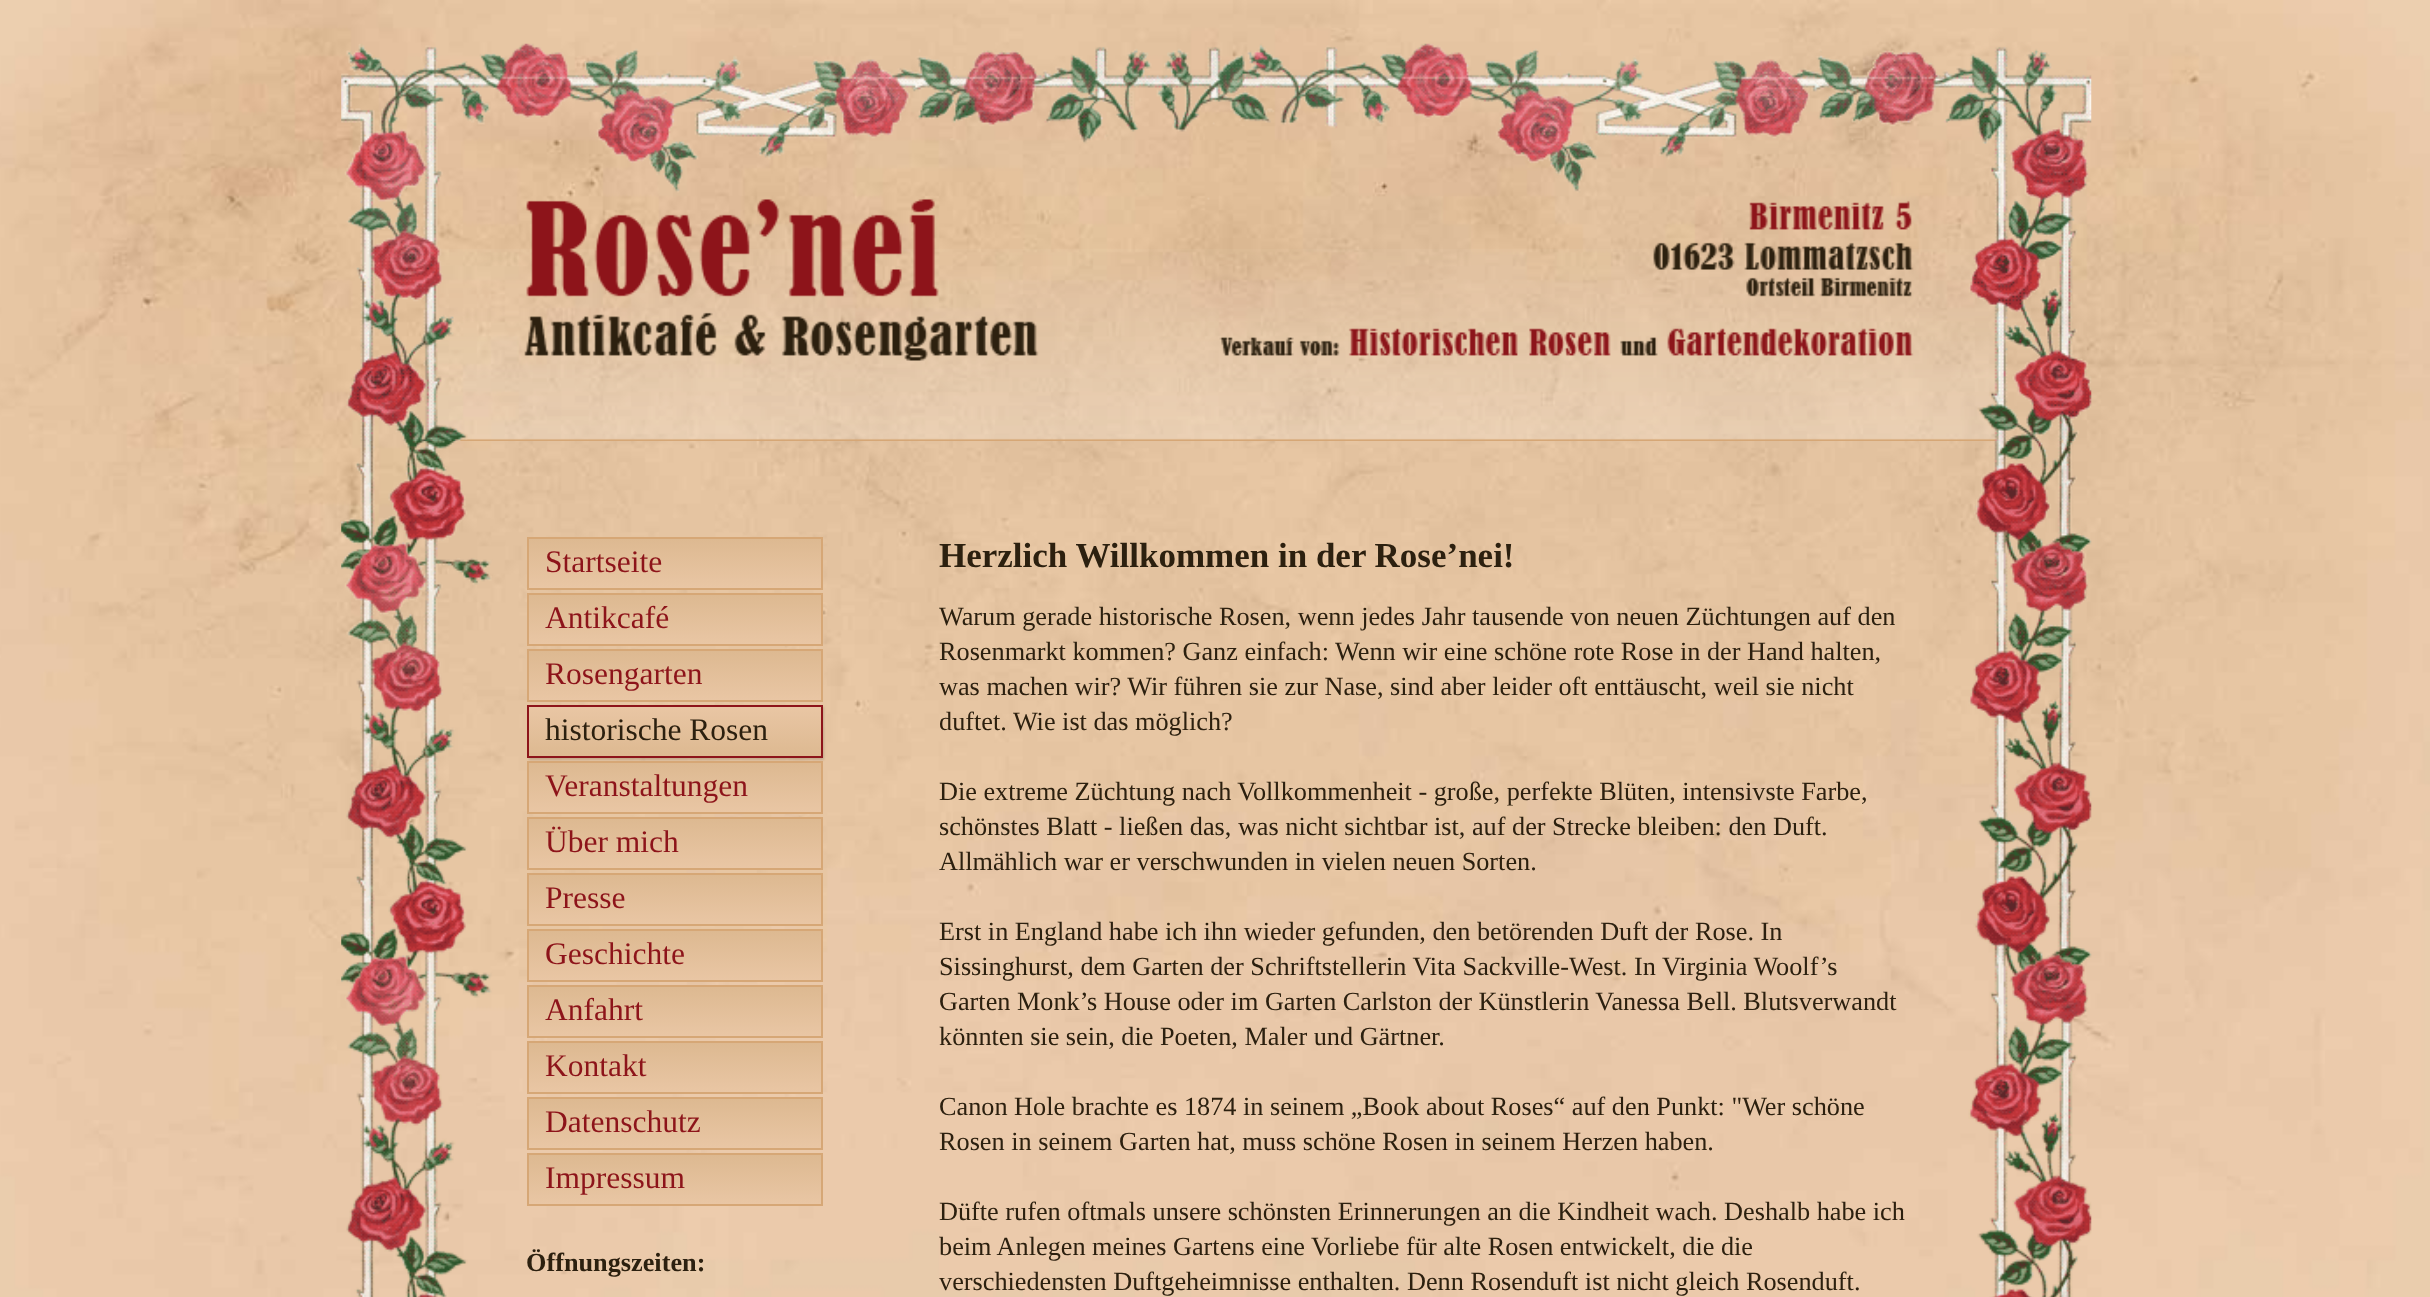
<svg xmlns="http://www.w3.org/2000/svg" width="2430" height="1297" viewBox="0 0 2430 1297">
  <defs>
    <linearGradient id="g1" gradientUnits="userSpaceOnUse" x1="675" y1="539" x2="675" y2="588"><stop offset="0" stop-color="#ddb991"/><stop offset="1" stop-color="#e9c6a4"/></linearGradient>
    <linearGradient id="g2" gradientUnits="userSpaceOnUse" x1="675" y1="595" x2="675" y2="644"><stop offset="0" stop-color="#ddb991"/><stop offset="1" stop-color="#e9c6a4"/></linearGradient>
    <linearGradient id="g3" gradientUnits="userSpaceOnUse" x1="675" y1="651" x2="675" y2="700"><stop offset="0" stop-color="#ddb991"/><stop offset="1" stop-color="#e9c6a4"/></linearGradient>
    <filter id="blur1" x="-50%" y="-200%" width="200%" height="500%"><feGaussianBlur stdDeviation="1"/></filter>
    <linearGradient id="g4" gradientUnits="userSpaceOnUse" x1="675" y1="707" x2="675" y2="756"><stop offset="0" stop-color="#e9c6a4"/><stop offset="1" stop-color="#ddb991"/></linearGradient>
    <linearGradient id="g5" gradientUnits="userSpaceOnUse" x1="675" y1="763" x2="675" y2="812"><stop offset="0" stop-color="#ddb991"/><stop offset="1" stop-color="#e9c6a4"/></linearGradient>
    <linearGradient id="g6" gradientUnits="userSpaceOnUse" x1="675" y1="819" x2="675" y2="868"><stop offset="0" stop-color="#ddb991"/><stop offset="1" stop-color="#e9c6a4"/></linearGradient>
    <linearGradient id="g7" gradientUnits="userSpaceOnUse" x1="675" y1="875" x2="675" y2="924"><stop offset="0" stop-color="#ddb991"/><stop offset="1" stop-color="#e9c6a4"/></linearGradient>
    <linearGradient id="g8" gradientUnits="userSpaceOnUse" x1="675" y1="931" x2="675" y2="980"><stop offset="0" stop-color="#ddb991"/><stop offset="1" stop-color="#e9c6a4"/></linearGradient>
    <linearGradient id="g9" gradientUnits="userSpaceOnUse" x1="675" y1="987" x2="675" y2="1036"><stop offset="0" stop-color="#ddb991"/><stop offset="1" stop-color="#e9c6a4"/></linearGradient>
    <linearGradient id="g10" gradientUnits="userSpaceOnUse" x1="675" y1="1043" x2="675" y2="1092"><stop offset="0" stop-color="#ddb991"/><stop offset="1" stop-color="#e9c6a4"/></linearGradient>
    <linearGradient id="g11" gradientUnits="userSpaceOnUse" x1="675" y1="1099" x2="675" y2="1148"><stop offset="0" stop-color="#ddb991"/><stop offset="1" stop-color="#e9c6a4"/></linearGradient>
    <linearGradient id="g12" gradientUnits="userSpaceOnUse" x1="675" y1="1155" x2="675" y2="1204"><stop offset="0" stop-color="#ddb991"/><stop offset="1" stop-color="#e9c6a4"/></linearGradient>
  </defs>
  <rect width="100%" height="100%" fill="#ffffff"/>
  <image x="0" y="0" width="2430" height="1297" href="img1.png"/>
  <image x="437" y="249" width="1559" height="192" href="img2.png"/>
  <image x="341" y="43" width="1751" height="398" href="img3.png"/>
  <image x="524" y="199" width="1390" height="162" href="img4.png"/>
  <image x="341" y="441" width="1751" height="856" href="img5.png"/>
  <rect x="529" y="539" width="292" height="49" fill="url(#g1)"/>
  <rect x="528" y="538" width="294" height="51" fill="none" stroke="#d6a776" stroke-width="2"/>
  <text x="545" y="572" font-family="Liberation Serif" font-size="31.5" fill="#8d141a">Startseite</text>
  <rect x="529" y="595" width="292" height="49" fill="url(#g2)"/>
  <rect x="528" y="594" width="294" height="51" fill="none" stroke="#d6a776" stroke-width="2"/>
  <text x="545" y="628" font-family="Liberation Serif" font-size="31.5" fill="#8d141a">Antikcafé</text>
  <rect x="529" y="651" width="292" height="49" fill="url(#g3)"/>
  <rect x="528" y="650" width="294" height="51" fill="none" stroke="#d6a776" stroke-width="2"/>
  <text x="545" y="684" font-family="Liberation Serif" font-size="31.5" fill="#8d141a">Rosengarten</text>
  <rect x="529" y="707" width="295" height="53" fill="#000000" fill-opacity="0.15" filter="url(#blur1)"/>
  <rect x="529" y="707" width="292" height="49" fill="url(#g4)"/>
  <rect x="528" y="706" width="294" height="51" fill="none" stroke="#8d141a" stroke-width="2"/>
  <text x="545" y="740" font-family="Liberation Serif" font-size="31.5" fill="#2c200f">historische Rosen</text>
  <rect x="529" y="763" width="292" height="49" fill="url(#g5)"/>
  <rect x="528" y="762" width="294" height="51" fill="none" stroke="#d6a776" stroke-width="2"/>
  <text x="545" y="796" font-family="Liberation Serif" font-size="31.5" fill="#8d141a">Veranstaltungen</text>
  <rect x="529" y="819" width="292" height="49" fill="url(#g6)"/>
  <rect x="528" y="818" width="294" height="51" fill="none" stroke="#d6a776" stroke-width="2"/>
  <text x="545" y="852" font-family="Liberation Serif" font-size="31.5" fill="#8d141a">Über mich</text>
  <rect x="529" y="875" width="292" height="49" fill="url(#g7)"/>
  <rect x="528" y="874" width="294" height="51" fill="none" stroke="#d6a776" stroke-width="2"/>
  <text x="545" y="908" font-family="Liberation Serif" font-size="31.5" fill="#8d141a">Presse</text>
  <rect x="529" y="931" width="292" height="49" fill="url(#g8)"/>
  <rect x="528" y="930" width="294" height="51" fill="none" stroke="#d6a776" stroke-width="2"/>
  <text x="545" y="964" font-family="Liberation Serif" font-size="31.5" fill="#8d141a">Geschichte</text>
  <rect x="529" y="987" width="292" height="49" fill="url(#g9)"/>
  <rect x="528" y="986" width="294" height="51" fill="none" stroke="#d6a776" stroke-width="2"/>
  <text x="545" y="1020" font-family="Liberation Serif" font-size="31.5" fill="#8d141a">Anfahrt</text>
  <rect x="529" y="1043" width="292" height="49" fill="url(#g10)"/>
  <rect x="528" y="1042" width="294" height="51" fill="none" stroke="#d6a776" stroke-width="2"/>
  <text x="545" y="1076" font-family="Liberation Serif" font-size="31.5" fill="#8d141a">Kontakt</text>
  <rect x="529" y="1099" width="292" height="49" fill="url(#g11)"/>
  <rect x="528" y="1098" width="294" height="51" fill="none" stroke="#d6a776" stroke-width="2"/>
  <text x="545" y="1132" font-family="Liberation Serif" font-size="31.5" fill="#8d141a">Datenschutz</text>
  <rect x="529" y="1155" width="292" height="49" fill="url(#g12)"/>
  <rect x="528" y="1154" width="294" height="51" fill="none" stroke="#d6a776" stroke-width="2"/>
  <text x="545" y="1188" font-family="Liberation Serif" font-size="31.5" fill="#8d141a">Impressum</text>
  <text x="526" y="1271" font-family="Liberation Serif" font-size="26.25" font-weight="bold" fill="#2c200f">Öffnungszeiten:</text>
  <text x="939" y="567" font-family="Liberation Serif" font-size="35" font-weight="bold" fill="#2c200f">Herzlich Willkommen in der Rose’nei!</text>
  <text x="939" y="625" font-family="Liberation Serif" font-size="26.25" fill="#2c200f">Warum gerade historische Rosen, wenn jedes Jahr tausende von neuen Züchtungen auf den</text>
  <text x="939" y="660" font-family="Liberation Serif" font-size="26.25" fill="#2c200f">Rosenmarkt kommen? Ganz einfach: Wenn wir eine schöne rote Rose in der Hand halten,</text>
  <text x="939" y="695" font-family="Liberation Serif" font-size="26.25" fill="#2c200f">was machen wir? Wir führen sie zur Nase, sind aber leider oft enttäuscht, weil sie nicht</text>
  <text x="939" y="730" font-family="Liberation Serif" font-size="26.25" fill="#2c200f">duftet. Wie ist das möglich?</text>
  <text x="939" y="800" font-family="Liberation Serif" font-size="26.25" fill="#2c200f">Die extreme Züchtung nach Vollkommenheit - große, perfekte Blüten, intensivste Farbe,</text>
  <text x="939" y="835" font-family="Liberation Serif" font-size="26.25" fill="#2c200f">schönstes Blatt - ließen das, was nicht sichtbar ist, auf der Strecke bleiben: den Duft.</text>
  <text x="939" y="870" font-family="Liberation Serif" font-size="26.25" fill="#2c200f">Allmählich war er verschwunden in vielen neuen Sorten.</text>
  <text x="939" y="940" font-family="Liberation Serif" font-size="26.25" fill="#2c200f">Erst in England habe ich ihn wieder gefunden, den betörenden Duft der Rose. In</text>
  <text x="939" y="975" font-family="Liberation Serif" font-size="26.25" fill="#2c200f">Sissinghurst, dem Garten der Schriftstellerin Vita Sackville-West. In Virginia Woolf’s</text>
  <text x="939" y="1010" font-family="Liberation Serif" font-size="26.25" fill="#2c200f">Garten Monk’s House oder im Garten Carlston der Künstlerin Vanessa Bell. Blutsverwandt</text>
  <text x="939" y="1045" font-family="Liberation Serif" font-size="26.25" fill="#2c200f">könnten sie sein, die Poeten, Maler und Gärtner.</text>
  <text x="939" y="1115" font-family="Liberation Serif" font-size="26.25" fill="#2c200f">Canon Hole brachte es 1874 in seinem „Book about Roses“ auf den Punkt: "Wer schöne</text>
  <text x="939" y="1150" font-family="Liberation Serif" font-size="26.25" fill="#2c200f">Rosen in seinem Garten hat, muss schöne Rosen in seinem Herzen haben.</text>
  <text x="939" y="1220" font-family="Liberation Serif" font-size="26.25" fill="#2c200f">Düfte rufen oftmals unsere schönsten Erinnerungen an die Kindheit wach. Deshalb habe ich</text>
  <text x="939" y="1255" font-family="Liberation Serif" font-size="26.25" fill="#2c200f">beim Anlegen meines Gartens eine Vorliebe für alte Rosen entwickelt, die die</text>
  <text x="939" y="1290" font-family="Liberation Serif" font-size="26.25" fill="#2c200f">verschiedensten Duftgeheimnisse enthalten. Denn Rosenduft ist nicht gleich Rosenduft.</text>
</svg>
